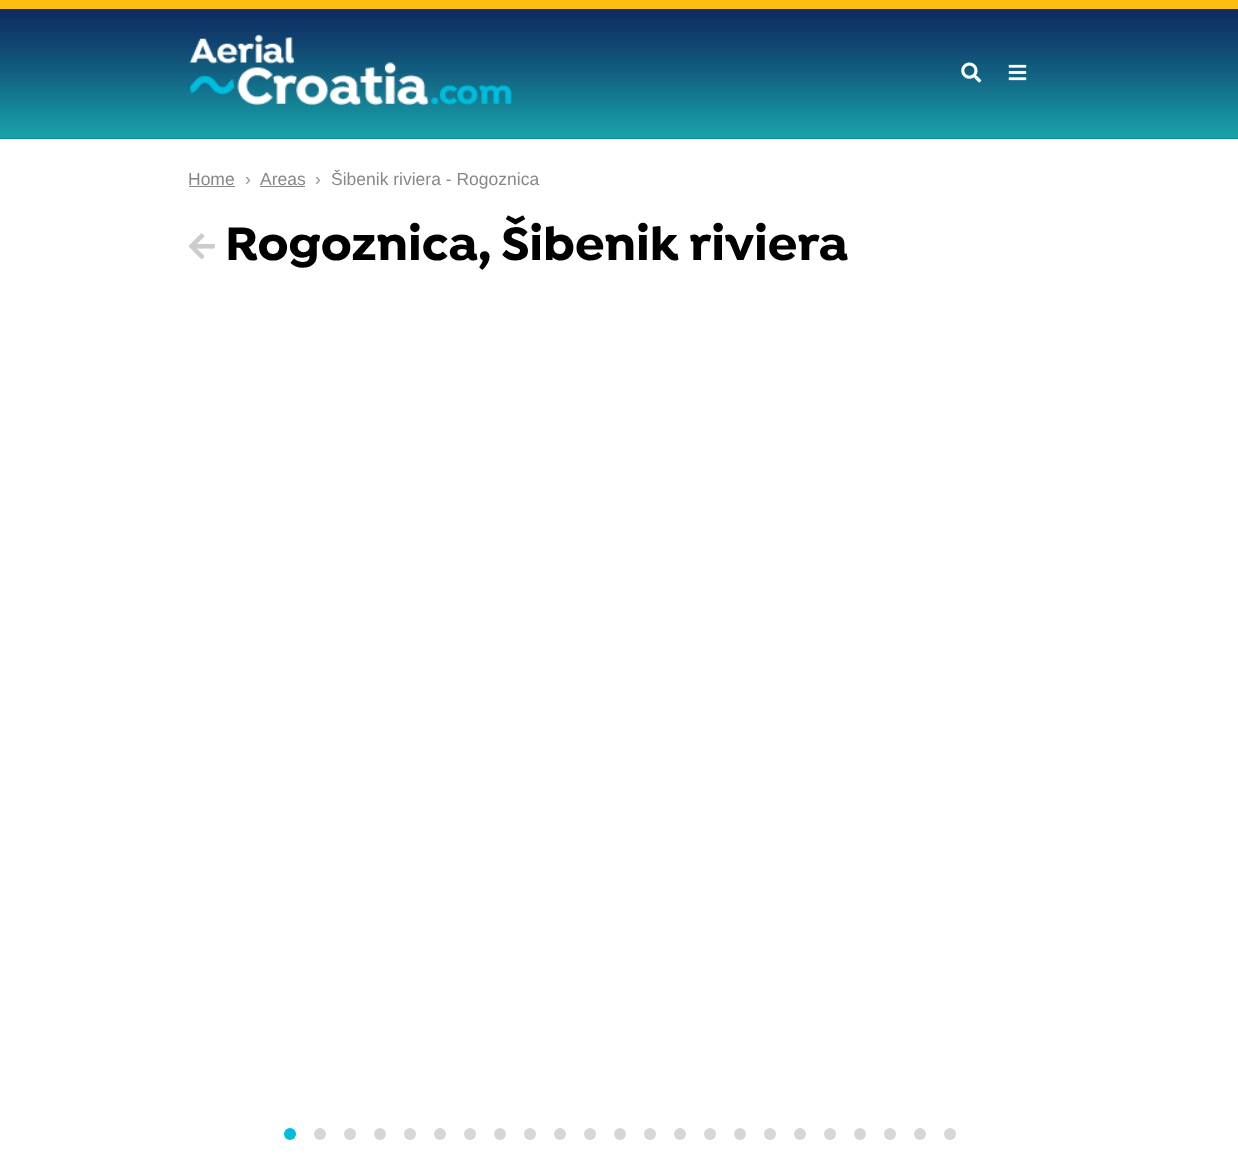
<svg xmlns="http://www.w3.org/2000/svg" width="1238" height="1168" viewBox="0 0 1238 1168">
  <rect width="100%" height="100%" fill="#ffffff"/>
  <rect x="0" y="9" width="1238" height="130" fill="#0e2d62"/>
  <image x="0" y="18" width="1238" height="121" href="img1.png"/>
  <rect x="0" y="0" width="1238" height="9" fill="#febe10"/>
  <image x="189" y="34" width="323" height="71" href="img2.png"/>
  <image x="961" y="62" width="21" height="21" href="img3.png"/>
  <image x="1008" y="64" width="19" height="17" href="img4.png"/>
  <text x="188" y="185" font-family="Liberation Sans" font-size="17.5" fill="#888888">Home</text>
  <rect x="189" y="186" width="46" height="1" fill="#888888"/>
  <text x="245" y="185" font-family="Liberation Sans" font-size="17.5" fill="#8395a7">›</text>
  <text x="260" y="185" font-family="Liberation Sans" font-size="17.5" fill="#888888">Areas</text>
  <rect x="260" y="186" width="45" height="1" fill="#888888"/>
  <text x="315" y="185" font-family="Liberation Sans" font-size="17.5" fill="#8395a7">›</text>
  <text x="331" y="185" font-family="Liberation Sans" font-size="17.5" fill="#888888">Šibenik riviera - Rogoznica</text>
  <image x="188" y="233" width="27" height="26" href="img5.png"/>
  <text x="225" y="260" font-family="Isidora" font-size="50" font-weight="bold" fill="#000000">Rogoznica, Šibenik riviera</text>
  <circle cx="290" cy="1134" r="6" fill="#00bddd"/>
  <circle cx="320" cy="1134" r="6" fill="#d6d6d6"/>
  <circle cx="350" cy="1134" r="6" fill="#d6d6d6"/>
  <circle cx="380" cy="1134" r="6" fill="#d6d6d6"/>
  <circle cx="410" cy="1134" r="6" fill="#d6d6d6"/>
  <circle cx="440" cy="1134" r="6" fill="#d6d6d6"/>
  <circle cx="470" cy="1134" r="6" fill="#d6d6d6"/>
  <circle cx="500" cy="1134" r="6" fill="#d6d6d6"/>
  <circle cx="530" cy="1134" r="6" fill="#d6d6d6"/>
  <circle cx="560" cy="1134" r="6" fill="#d6d6d6"/>
  <circle cx="590" cy="1134" r="6" fill="#d6d6d6"/>
  <circle cx="620" cy="1134" r="6" fill="#d6d6d6"/>
  <circle cx="650" cy="1134" r="6" fill="#d6d6d6"/>
  <circle cx="680" cy="1134" r="6" fill="#d6d6d6"/>
  <circle cx="710" cy="1134" r="6" fill="#d6d6d6"/>
  <circle cx="740" cy="1134" r="6" fill="#d6d6d6"/>
  <circle cx="770" cy="1134" r="6" fill="#d6d6d6"/>
  <circle cx="800" cy="1134" r="6" fill="#d6d6d6"/>
  <circle cx="830" cy="1134" r="6" fill="#d6d6d6"/>
  <circle cx="860" cy="1134" r="6" fill="#d6d6d6"/>
  <circle cx="890" cy="1134" r="6" fill="#d6d6d6"/>
  <circle cx="920" cy="1134" r="6" fill="#d6d6d6"/>
  <circle cx="950" cy="1134" r="6" fill="#d6d6d6"/>
</svg>
